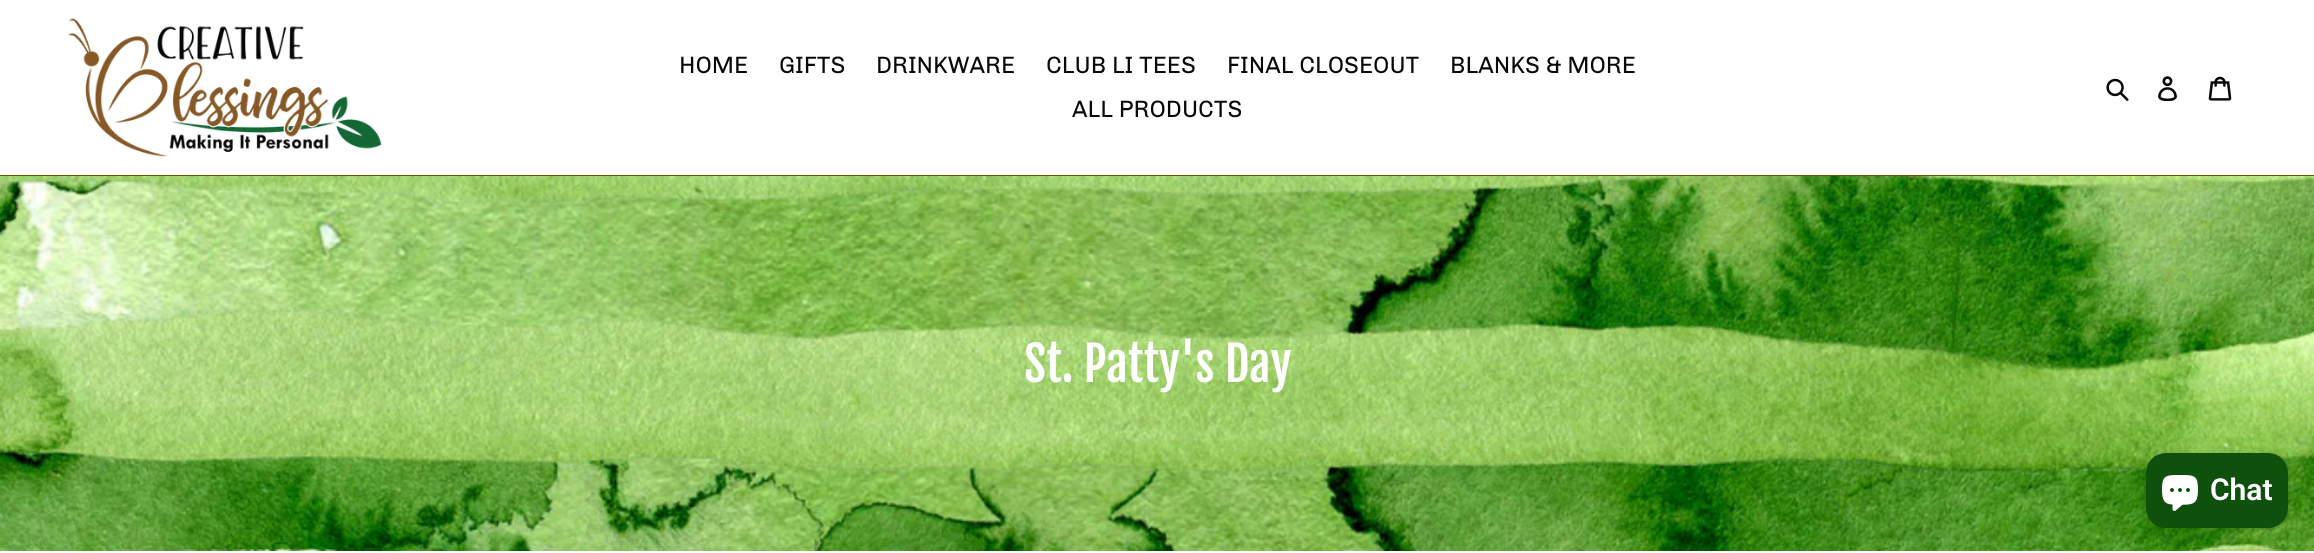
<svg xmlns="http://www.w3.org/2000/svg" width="2314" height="553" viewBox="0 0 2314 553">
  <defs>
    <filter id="blur1" x="-50%" y="-200%" width="200%" height="500%"><feGaussianBlur stdDeviation="3"/></filter>
  </defs>
  <rect width="100%" height="100%" fill="#ffffff"/>
  <rect x="0" y="175" width="2314" height="1" fill="#5a5a05"/>
  <image x="68" y="18" width="314" height="139" href="img1.png"/>
  <text x="679" y="73" font-family="Chivo" font-size="23.75" fill="#080808">HOME</text>
  <text x="779" y="73" font-family="Chivo" font-size="23.75" fill="#080808">GIFTS</text>
  <text x="876" y="73" font-family="Chivo" font-size="23.75" fill="#080808">DRINKWARE</text>
  <text x="1046" y="73" font-family="Chivo" font-size="23.75" fill="#080808">CLUB LI TEES</text>
  <text x="1227" y="73" font-family="Chivo" font-size="23.75" fill="#080808">FINAL CLOSEOUT</text>
  <text x="1450" y="73" font-family="Chivo" font-size="23.75" fill="#080808">BLANKS &amp; MORE</text>
  <text x="1072" y="117" font-family="Chivo" font-size="23.75" fill="#080808">ALL PRODUCTS</text>
  <image x="2106" y="78" width="23" height="23" href="img2.png"/>
  <image x="2158" y="76" width="19" height="25" href="img3.png"/>
  <image x="2208" y="76" width="24" height="25" href="img4.png"/>
  <image x="0" y="176" width="2314" height="375" href="img5.png"/>
  <text x="1024" y="382" font-family="Fjalla One" font-size="47.5" fill="#ffffff">St. Patty's Day</text>
  <rect x="2146" y="453" width="142" height="75" rx="20" fill="#000000" fill-opacity="0.15" filter="url(#blur1)"/>
  <rect x="2146" y="453" width="142" height="75" rx="20" fill="#0e500c"/>
  <image x="2162" y="475" width="36" height="36" href="img6.png"/>
  <text x="2210" y="500" font-family="Roboto" font-size="30" font-weight="600" fill="#ffffff">Chat</text>
</svg>
